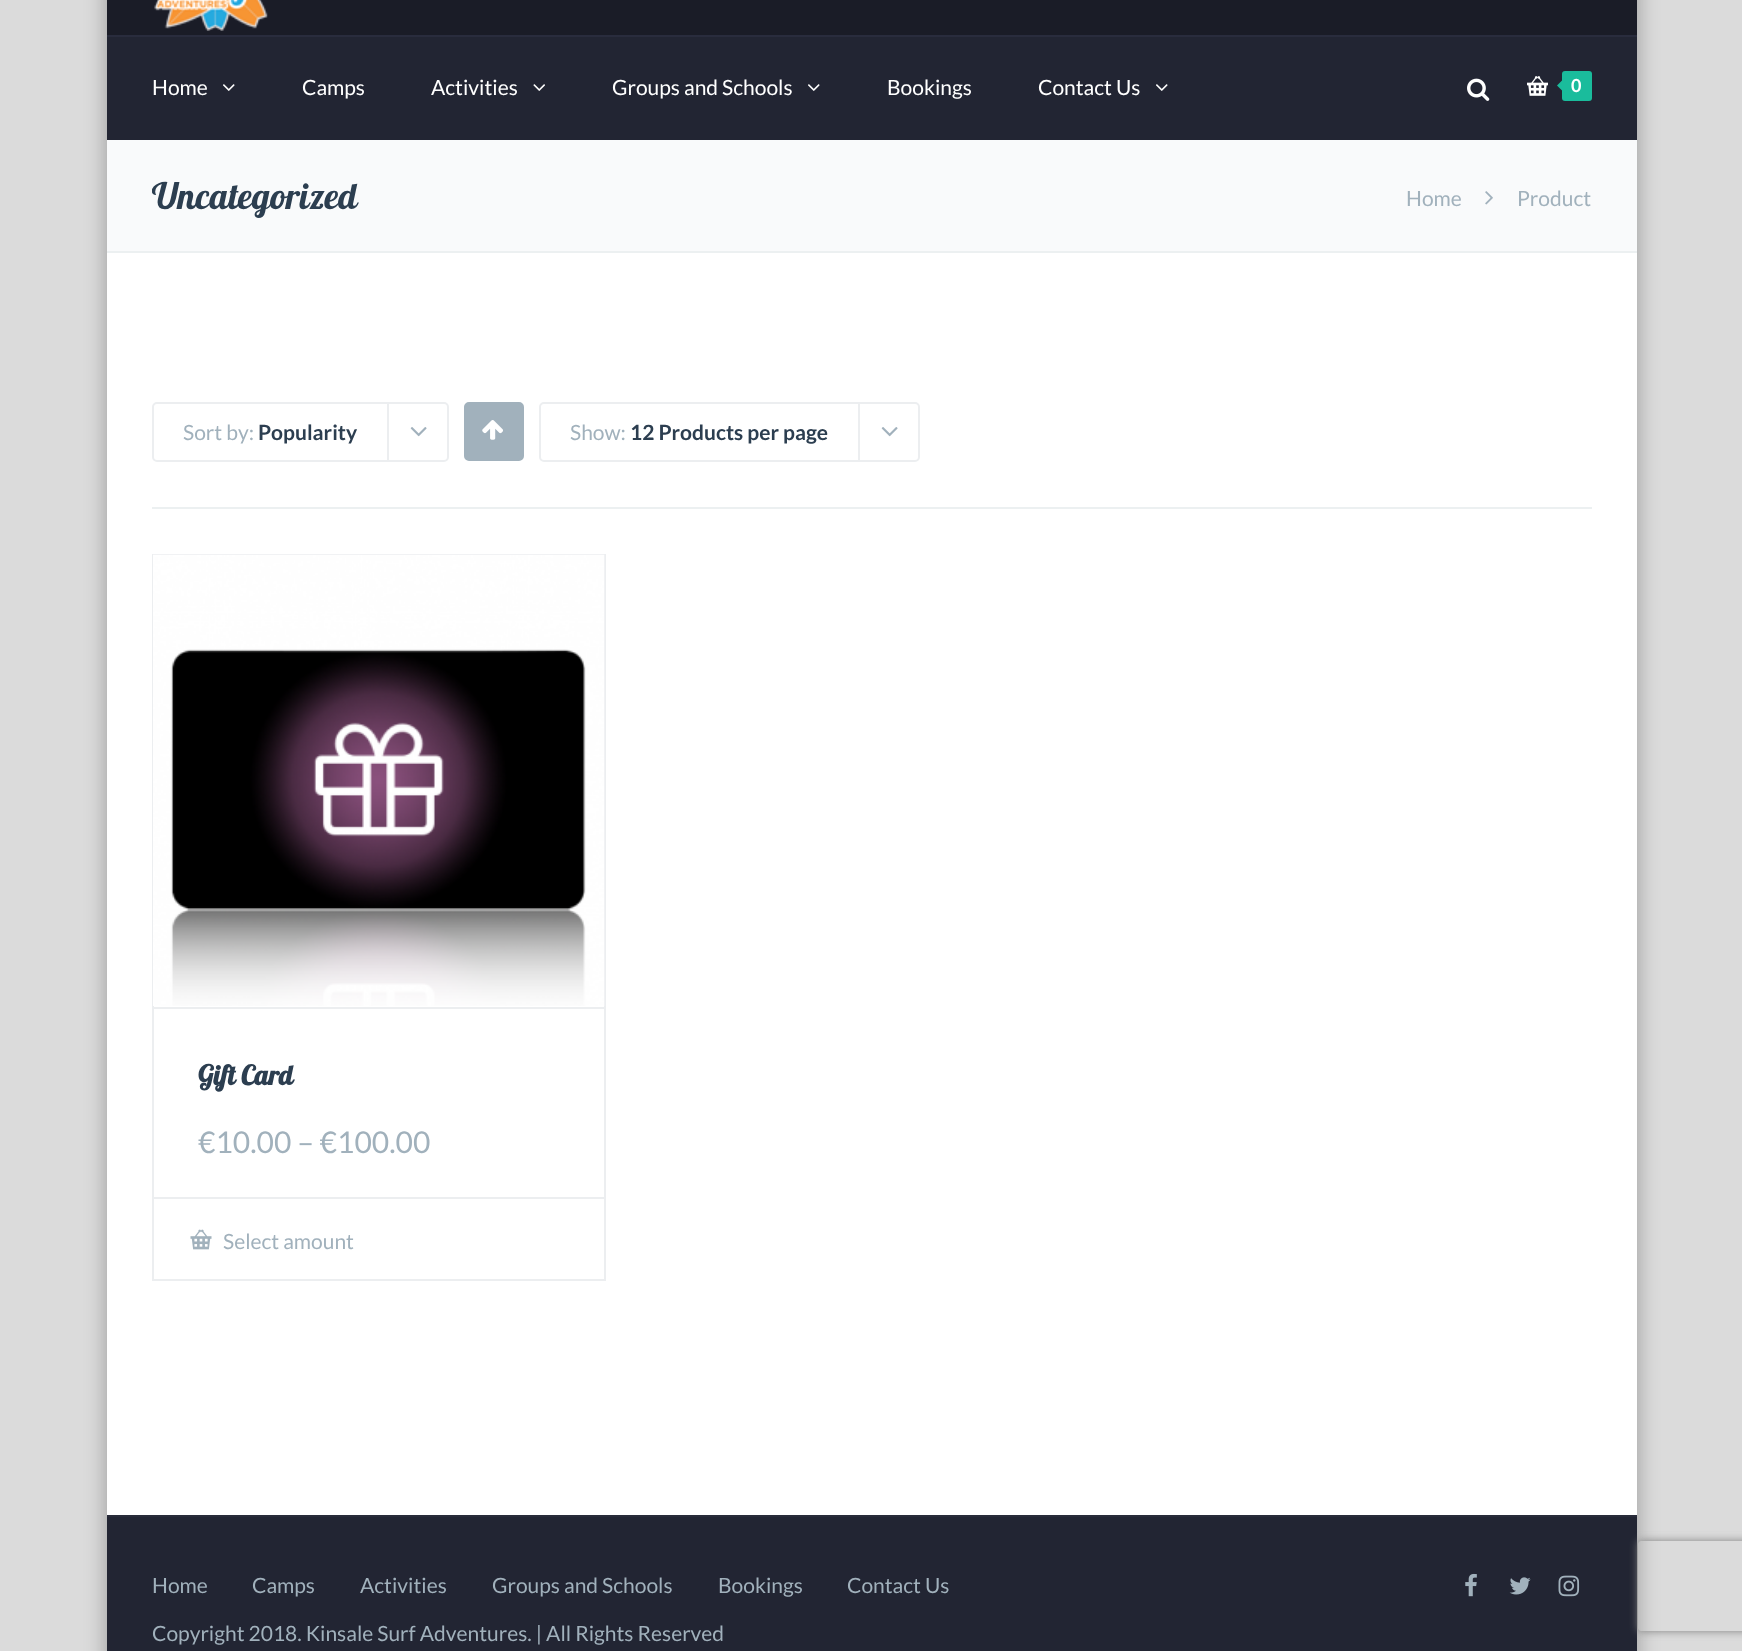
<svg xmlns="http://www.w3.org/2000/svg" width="1742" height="1651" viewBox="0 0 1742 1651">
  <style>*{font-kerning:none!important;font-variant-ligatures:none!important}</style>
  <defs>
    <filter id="blur1" x="-50%" y="-200%" width="200%" height="500%"><feGaussianBlur stdDeviation="11"/></filter>
    <clipPath id="clip1"><rect x="152" y="170" width="1440" height="51"/></clipPath>
    <clipPath id="clip2"><path d="M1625 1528H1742V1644H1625ZM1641 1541H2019C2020.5 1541 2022 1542.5 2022 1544V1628C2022 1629.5 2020.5 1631 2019 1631H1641C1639.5 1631 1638 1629.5 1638 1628V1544C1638 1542.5 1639.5 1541 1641 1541Z" clip-rule="evenodd"/></clipPath>
    <filter id="blur2" x="-50%" y="-200%" width="200%" height="500%"><feGaussianBlur stdDeviation="4"/></filter>
  </defs>
  <rect width="100%" height="100%" fill="#dbdbdb"/>
  <rect x="107" y="-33" width="1530" height="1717" fill="#000000" fill-opacity="0.3" filter="url(#blur1)"/>
  <rect x="107" y="0" width="1530" height="35" fill="#1a1c27"/>
  <image x="154" y="0" width="114" height="31" href="img1.png"/>
  <rect x="107" y="37" width="1530" height="103" fill="#222533"/>
  <rect x="107" y="35" width="1530" height="2" fill="#292c3d"/>
  <text x="152" y="95" font-family="Lato" font-size="21" fill="#ffffff">Home</text>
  <image x="223" y="84" width="12" height="7" href="img2.png"/>
  <text x="302" y="95" font-family="Lato" font-size="21" fill="#ffffff">Camps</text>
  <text x="431" y="95" font-family="Lato" font-size="21" fill="#ffffff">Activities</text>
  <image x="533" y="84" width="12" height="7" href="img3.png"/>
  <text x="612" y="95" font-family="Lato" font-size="21" fill="#ffffff">Groups and Schools</text>
  <image x="808" y="84" width="12" height="7" href="img2.png"/>
  <text x="887" y="95" font-family="Lato" font-size="21" fill="#ffffff">Bookings</text>
  <text x="1038" y="95" font-family="Lato" font-size="21" fill="#ffffff">Contact Us</text>
  <image x="1156" y="84" width="12" height="7" href="img2.png"/>
  <image x="1467" y="78" width="23" height="23" href="img4.png"/>
  <image x="1527" y="76" width="21" height="20" href="img5.png"/>
  <rect x="1562" y="71" width="30" height="30" rx="3" fill="#1abc9c"/>
  <path d="M1564.5 78V93L1557 85.5Z" fill="#1abc9c"/>
  <text x="1571" y="92" font-family="Lato" font-size="18" font-weight="bold" fill="#ffffff">0</text>
  <rect x="107" y="140" width="1530" height="111" fill="#f9fafb"/>
  <rect x="107" y="251" width="1530" height="2" fill="#ecf0f1"/>
  <g clip-path="url(#clip1)">
    <text x="152" y="209" font-family="Lobster" font-size="36" fill="#2c3e50">Uncategorized</text>
  </g>
  <text x="1406" y="206" font-family="Lato" font-size="21" fill="#a1b1bc">Home</text>
  <image x="1485" y="191" width="8" height="14" href="img6.png"/>
  <text x="1517" y="206" font-family="Lato" font-size="21" fill="#a1b1bc">Product</text>
  <rect x="107" y="253" width="1530" height="1262" fill="#ffffff"/>
  <rect x="152" y="507" width="1440" height="2" fill="#ecf0f1"/>
  <rect x="153" y="403" width="295" height="58" rx="4" fill="none" stroke="#eceef0" stroke-width="2"/>
  <text x="183" y="440" font-family="Lato" font-size="21" fill="#a1b1bc">Sort by:</text>
  <text x="258" y="440" font-family="Lato" font-size="21" font-weight="bold" fill="#2c3e50">Popularity</text>
  <rect x="387" y="402" width="2" height="59" fill="#eceef0"/>
  <image x="410" y="427" width="17" height="10" href="img7.png"/>
  <rect x="465" y="403" width="58" height="57" rx="4" fill="#a1b1bc" stroke="#a1b1bc" stroke-width="2"/>
  <image x="482" y="420" width="21" height="20" href="img8.png"/>
  <rect x="540" y="403" width="379" height="58" rx="4" fill="none" stroke="#eceef0" stroke-width="2"/>
  <text x="570" y="440" font-family="Lato" font-size="21" fill="#a1b1bc">Show:</text>
  <text x="630" y="440" font-family="Lato" font-size="21" font-weight="bold" fill="#2c3e50">12 Products per page</text>
  <rect x="858" y="402" width="2" height="59" fill="#eceef0"/>
  <image x="881" y="427" width="17" height="10" href="img7.png"/>
  <rect x="153" y="555" width="452" height="725" fill="none" stroke="#eceef0" stroke-width="2"/>
  <image x="153" y="554" width="452" height="452" href="img9.png"/>
  <rect x="153" y="1007" width="452" height="2" fill="#eceef0"/>
  <rect x="153" y="1197" width="452" height="2" fill="#eceef0"/>
  <text x="198" y="1085" font-family="Lobster" font-size="27" font-weight="bold" fill="#2c3e50">Gift Card</text>
  <text x="198" y="1153" font-family="Lato" font-size="30" fill="#a1b1bc">€10.00 – €100.00</text>
  <image x="190" y="1229" width="22" height="21" href="img10.png"/>
  <text x="223" y="1249" font-family="Lato" font-size="21" fill="#a1b1bc">Select amount</text>
  <rect x="107" y="1517" width="1530" height="134" fill="#222533"/>
  <rect x="107" y="1515" width="1530" height="2" fill="#282b39"/>
  <text x="152" y="1593" font-family="Lato" font-size="21" fill="#a1b1bc">Home</text>
  <text x="252" y="1593" font-family="Lato" font-size="21" fill="#a1b1bc">Camps</text>
  <text x="360" y="1593" font-family="Lato" font-size="21" fill="#a1b1bc">Activities</text>
  <text x="492" y="1593" font-family="Lato" font-size="21" fill="#a1b1bc">Groups and Schools</text>
  <text x="718" y="1593" font-family="Lato" font-size="21" fill="#a1b1bc">Bookings</text>
  <text x="847" y="1593" font-family="Lato" font-size="21" fill="#a1b1bc">Contact Us</text>
  <image x="1465" y="1573" width="12" height="24" href="img11.png"/>
  <image x="1509" y="1577" width="22" height="18" href="img12.png"/>
  <image x="1558" y="1575" width="22" height="22" href="img13.png"/>
  <text x="152" y="1641" font-family="Lato" font-size="21" fill="#a1b1bc">Copyright 2018. Kinsale Surf Adventures. | All Rights Reserved</text>
  <g clip-path="url(#clip2)">
    <rect x="1638" y="1541" width="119" height="90" rx="3" fill="#808080" filter="url(#blur2)"/>
  </g>
</svg>
